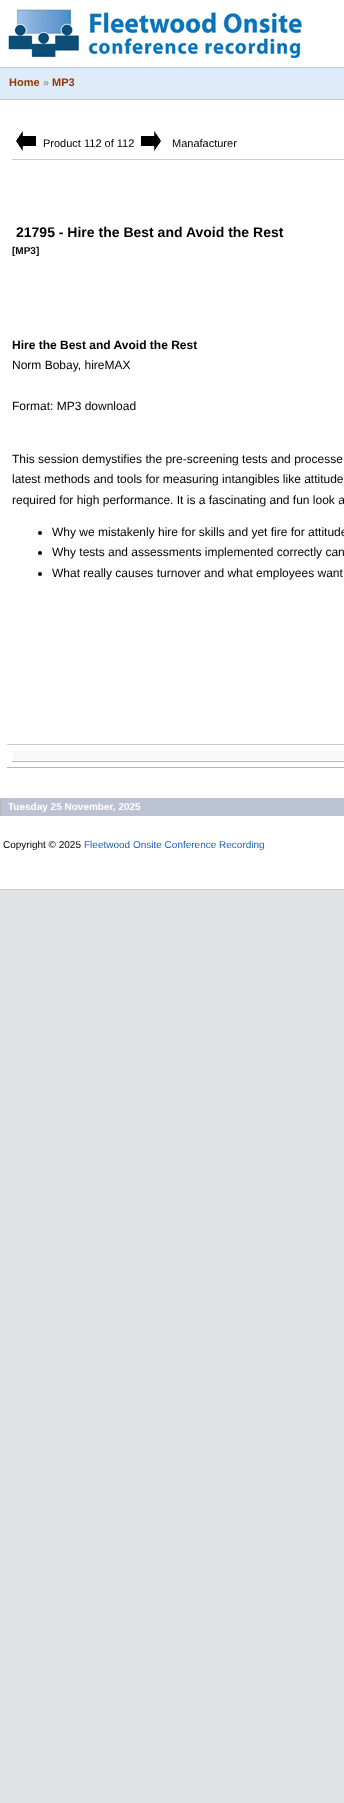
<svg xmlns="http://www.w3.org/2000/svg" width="344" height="1803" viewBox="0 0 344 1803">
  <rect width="100%" height="100%" fill="#e0e2e4"/>
  <rect x="0" y="0" width="344" height="889" fill="#ffffff"/>
  <image x="8" y="9" width="294" height="50" href="img1.png"/>
  <rect x="0" y="68" width="344" height="31" fill="#deebf8"/>
  <rect x="0" y="67" width="344" height="1" fill="#cccccc"/>
  <rect x="0" y="99" width="344" height="1" fill="#cccccc"/>
  <text x="9" y="86" font-family="Liberation Sans" font-size="11" font-weight="bold" fill="#993300">Home</text>
  <text x="43" y="86" font-family="Liberation Sans" font-size="11" font-weight="bold" fill="#999999">»</text>
  <text x="52" y="86" font-family="Liberation Sans" font-size="11" font-weight="bold" fill="#993300">MP3</text>
  <rect x="12" y="159" width="332" height="1" fill="#cccccc"/>
  <image x="16" y="131" width="20" height="20" href="img2.png"/>
  <text x="43" y="147" font-family="Liberation Sans" font-size="11" fill="#000000">Product 112 of 112</text>
  <image x="141" y="131" width="20" height="20" href="img3.png"/>
  <text x="172" y="147" font-family="Liberation Sans" font-size="11" fill="#000000">Manafacturer</text>
  <text x="16" y="237" font-family="Liberation Sans" font-size="14" font-weight="bold" fill="#000000">21795 - Hire the Best and Avoid the Rest</text>
  <text x="12" y="254" font-family="Liberation Sans" font-size="10" font-weight="bold" fill="#000000">[MP3]</text>
  <text x="12" y="349" font-family="Liberation Sans" font-size="12" font-weight="bold" fill="#000000">Hire the Best and Avoid the Rest</text>
  <text x="12" y="369" font-family="Liberation Sans" font-size="12" fill="#000000">Norm Bobay, hireMAX</text>
  <text x="12" y="410" font-family="Liberation Sans" font-size="12" fill="#000000">Format: MP3 download</text>
  <text x="12" y="463" font-family="Liberation Sans" font-size="12" fill="#000000">This session demystifies the pre-screening tests and processe</text>
  <text x="12" y="483" font-family="Liberation Sans" font-size="12" fill="#000000">latest methods and tools for measuring intangibles like attitude</text>
  <text x="12" y="504" font-family="Liberation Sans" font-size="12" fill="#000000">required for high performance. It is a fascinating and fun look a</text>
  <circle cx="40" cy="533" r="2" fill="#000000"/>
  <text x="52" y="536" font-family="Liberation Sans" font-size="12" fill="#000000">Why we mistakenly hire for skills and yet fire for attitude</text>
  <circle cx="40" cy="553" r="2" fill="#000000"/>
  <text x="52" y="556" font-family="Liberation Sans" font-size="12" fill="#000000">Why tests and assessments implemented correctly can</text>
  <circle cx="40" cy="574" r="2" fill="#000000"/>
  <text x="52" y="577" font-family="Liberation Sans" font-size="12" fill="#000000">What really causes turnover and what employees want</text>
  <rect x="7" y="744" width="337" height="1" fill="#cccccc"/>
  <rect x="7" y="767" width="337" height="1" fill="#b7b7b7"/>
  <rect x="12" y="761" width="332" height="1" fill="#b7b7b7"/>
  <rect x="13" y="751" width="331" height="9" fill="#f8f8f9"/>
  <rect x="1" y="798" width="343" height="18" fill="#bbc3d3"/>
  <rect x="0" y="798" width="1" height="18" fill="#b7b7b7"/>
  <text x="8" y="810" font-family="Liberation Sans" font-size="10" font-weight="bold" fill="#ffffff">Tuesday 25 November, 2025</text>
  <rect x="0" y="889" width="344" height="1" fill="#cccccc"/>
  <text x="3" y="848" font-family="Liberation Sans" font-size="10" fill="#000000">Copyright © 2025</text>
  <text x="84" y="848" font-family="Liberation Sans" font-size="10" fill="#1d62c2">Fleetwood Onsite Conference Recording</text>
</svg>
